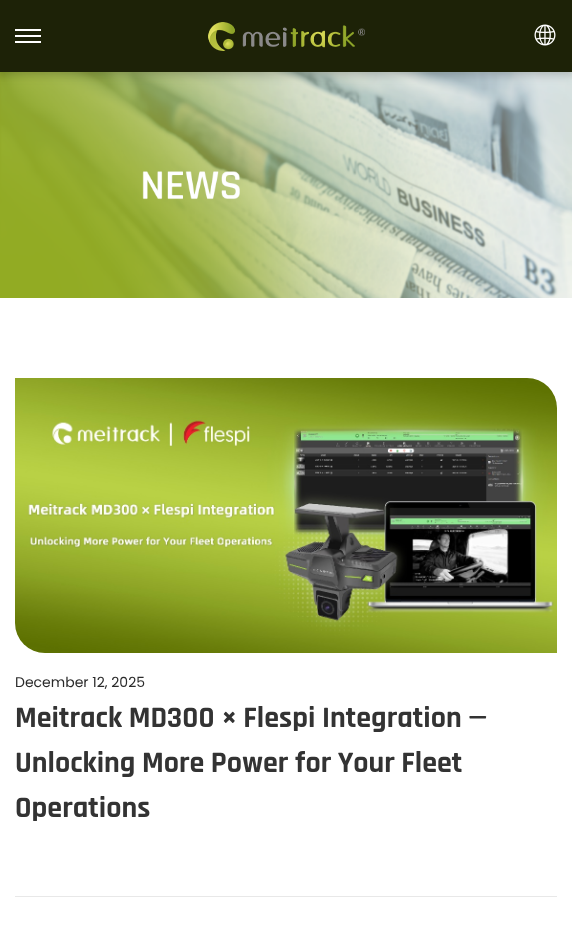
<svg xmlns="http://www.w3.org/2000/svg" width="572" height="937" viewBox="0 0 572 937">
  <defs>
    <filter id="blur1" x="-50%" y="-200%" width="200%" height="500%"><feGaussianBlur stdDeviation="5"/></filter>
  </defs>
  <rect width="100%" height="100%" fill="#ffffff"/>
  <image x="0" y="72" width="572" height="226" href="img3.png"/>
  <rect x="-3" y="-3" width="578" height="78" fill="#000000" fill-opacity="0.2" filter="url(#blur1)"/>
  <rect x="0" y="0" width="572" height="72" fill="#1d2207"/>
  <rect x="15" y="35" width="26" height="2" fill="#ffffff"/>
  <rect x="15" y="29" width="26" height="2" fill="#ffffff"/>
  <rect x="15" y="41" width="26" height="2" fill="#ffffff"/>
  <image x="208" y="22" width="157" height="29" href="img1.png"/>
  <image x="534" y="24" width="22" height="22" href="img2.png"/>
  <rect x="15" y="896" width="542" height="1" fill="#e8e8e8"/>
  <image x="15" y="378" width="542" height="275" href="img4.png"/>
  <text x="15" y="687" font-family="Poppins" font-size="14" fill="#2b2b2b">December 12, 2025</text>
  <text x="15" y="727" font-family="Rajdhani" font-size="30" font-weight="bold" fill="#333333">Meitrack MD300 × Flespi Integration —</text>
  <text x="15" y="772" font-family="Rajdhani" font-size="30" font-weight="bold" fill="#333333">Unlocking More Power for Your Fleet</text>
  <text x="15" y="817" font-family="Rajdhani" font-size="30" font-weight="bold" fill="#333333">Operations</text>
</svg>
